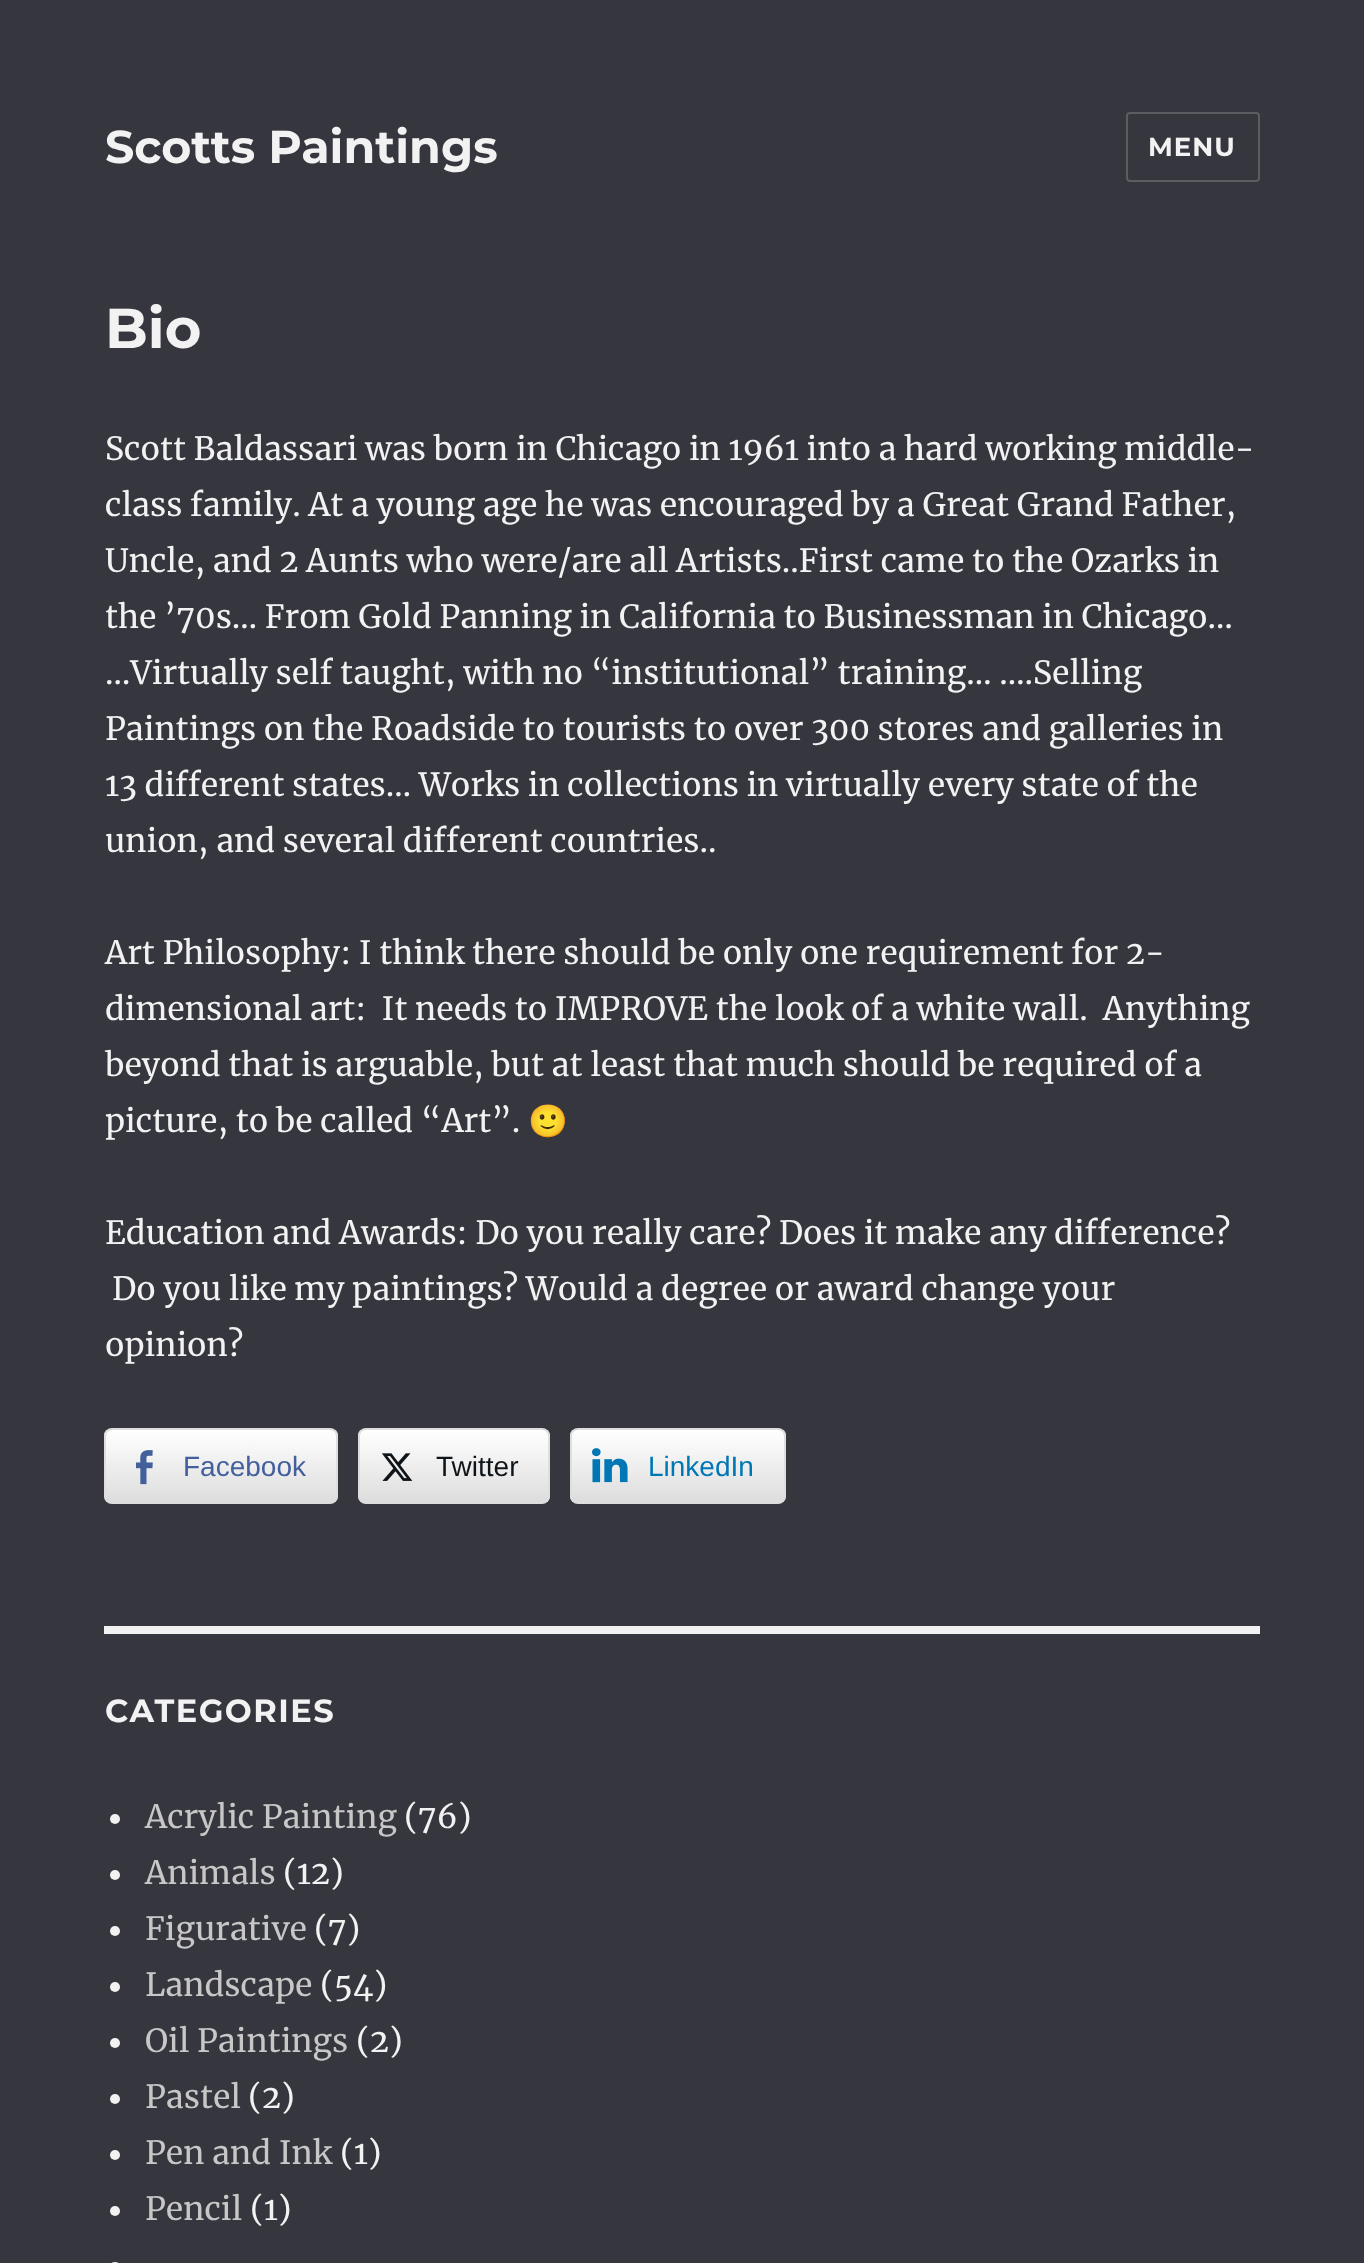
<svg xmlns="http://www.w3.org/2000/svg" width="1364" height="2263" viewBox="0 0 1364 2263">
  <defs>
    <clipPath id="clip1"><rect x="104" y="1428" width="234" height="76" rx="8"/></clipPath>
    <linearGradient id="g1" gradientUnits="userSpaceOnUse" x1="221" y1="1430" x2="221" y2="1502"><stop offset="0" stop-color="#ffffff"/><stop offset="1" stop-color="#dddddd"/></linearGradient>
    <clipPath id="clip2"><rect x="358" y="1428" width="192" height="76" rx="8"/></clipPath>
    <linearGradient id="g2" gradientUnits="userSpaceOnUse" x1="454" y1="1430" x2="454" y2="1502"><stop offset="0" stop-color="#ffffff"/><stop offset="1" stop-color="#dddddd"/></linearGradient>
    <clipPath id="clip3"><rect x="570" y="1428" width="216" height="76" rx="8"/></clipPath>
    <linearGradient id="g3" gradientUnits="userSpaceOnUse" x1="678" y1="1430" x2="678" y2="1502"><stop offset="0" stop-color="#ffffff"/><stop offset="1" stop-color="#dddddd"/></linearGradient>
  </defs>
  <rect width="100%" height="100%" fill="#36363f"/>
  <text x="105" y="163" font-family="Montserrat" font-size="46" font-weight="100" fill="#f2f2f2">Scotts Paintings</text>
  <rect x="1127" y="113" width="132" height="68" rx="3" fill="none" stroke="#5c5c63" stroke-width="2"/>
  <text x="1148" y="156" font-family="Montserrat" font-size="26" font-weight="100" letter-spacing="1" fill="#f2f2f2">MENU</text>
  <text x="105" y="348" font-family="Montserrat" font-size="56" font-weight="100" fill="#f2f2f2">Bio</text>
  <text x="105" y="460" font-family="Merriweather" font-size="32" fill="#f2f2f2">Scott Baldassari was born in Chicago in 1961 into a hard working middle-</text>
  <text x="105" y="516" font-family="Merriweather" font-size="32" fill="#f2f2f2">class family. At a young age he was encouraged by a Great Grand Father,</text>
  <text x="105" y="572" font-family="Merriweather" font-size="32" fill="#f2f2f2">Uncle, and 2 Aunts who were/are all Artists..First came to the Ozarks in</text>
  <text x="105" y="628" font-family="Merriweather" font-size="32" fill="#f2f2f2">the ’70s… From Gold Panning in California to Businessman in Chicago…</text>
  <text x="105" y="684" font-family="Merriweather" font-size="32" fill="#f2f2f2">…Virtually self taught, with no “institutional” training… ….Selling</text>
  <text x="105" y="740" font-family="Merriweather" font-size="32" fill="#f2f2f2">Paintings on the Roadside to tourists to over 300 stores and galleries in</text>
  <text x="105" y="796" font-family="Merriweather" font-size="32" fill="#f2f2f2">13 different states… Works in collections in virtually every state of the</text>
  <text x="105" y="852" font-family="Merriweather" font-size="32" fill="#f2f2f2">union, and several different countries..</text>
  <text x="105" y="964" font-family="Merriweather" font-size="32" fill="#f2f2f2">Art Philosophy: I think there should be only one requirement for 2-</text>
  <text x="105" y="1020" font-family="Merriweather" font-size="32" fill="#f2f2f2" xml:space="preserve">dimensional art:  It needs to IMPROVE the look of a white wall.  Anything</text>
  <text x="105" y="1076" font-family="Merriweather" font-size="32" fill="#f2f2f2">beyond that is arguable, but at least that much should be required of a</text>
  <text x="105" y="1132" font-family="Merriweather" font-size="32" fill="#f2f2f2">picture, to be called “Art”.</text>
  <text x="528" y="1132" font-family="Noto Color Emoji" font-size="32" fill="#f2f2f2">🙂</text>
  <text x="105" y="1244" font-family="Merriweather" font-size="32" fill="#f2f2f2">Education and Awards: Do you really care? Does it make any difference?</text>
  <text x="112" y="1300" font-family="Merriweather" font-size="32" fill="#f2f2f2">Do you like my paintings? Would a degree or award change your</text>
  <text x="105" y="1356" font-family="Merriweather" font-size="32" fill="#f2f2f2">opinion?</text>
  <g clip-path="url(#clip1)">
    <rect x="104" y="1430" width="234" height="72" fill="url(#g1)"/>
  </g>
  <rect x="105" y="1429" width="232" height="74" rx="7" fill="none" stroke="#dedede" stroke-width="2"/>
  <image x="136" y="1450" width="17" height="35" href="img1.png"/>
  <text x="183" y="1476" font-family="Liberation Sans" font-size="28" fill="#43609c">Facebook</text>
  <g clip-path="url(#clip2)">
    <rect x="358" y="1430" width="192" height="72" fill="url(#g2)"/>
  </g>
  <rect x="359" y="1429" width="190" height="74" rx="7" fill="none" stroke="#dedede" stroke-width="2"/>
  <image x="381" y="1453" width="32" height="28" href="img2.png"/>
  <text x="436" y="1476" font-family="Liberation Sans" font-size="28" fill="#0f1419">Twitter</text>
  <g clip-path="url(#clip3)">
    <rect x="570" y="1430" width="216" height="72" fill="url(#g3)"/>
  </g>
  <rect x="571" y="1429" width="214" height="74" rx="7" fill="none" stroke="#dedede" stroke-width="2"/>
  <image x="592" y="1448" width="36" height="35" href="img3.png"/>
  <text x="648" y="1476" font-family="Liberation Sans" font-size="28" fill="#0077b5">LinkedIn</text>
  <rect x="104" y="1626" width="1156" height="8" fill="#f2f2f2"/>
  <text x="105" y="1722" font-family="Montserrat" font-size="32" font-weight="100" letter-spacing="1.5" fill="#f2f2f2">CATEGORIES</text>
  <circle cx="115" cy="1819" r="5" fill="#f2f2f2"/>
  <text x="145" y="1828" font-family="Merriweather" font-size="32" fill="#c7c7c7">Acrylic Painting</text>
  <text x="404" y="1828" font-family="Merriweather" font-size="32" fill="#f2f2f2">(76)</text>
  <circle cx="115" cy="1875" r="5" fill="#f2f2f2"/>
  <text x="145" y="1884" font-family="Merriweather" font-size="32" fill="#c7c7c7">Animals</text>
  <text x="283" y="1884" font-family="Merriweather" font-size="32" fill="#f2f2f2">(12)</text>
  <circle cx="115" cy="1931" r="5" fill="#f2f2f2"/>
  <text x="145" y="1940" font-family="Merriweather" font-size="32" fill="#c7c7c7">Figurative</text>
  <text x="314" y="1940" font-family="Merriweather" font-size="32" fill="#f2f2f2">(7)</text>
  <circle cx="115" cy="1987" r="5" fill="#f2f2f2"/>
  <text x="145" y="1996" font-family="Merriweather" font-size="32" fill="#c7c7c7">Landscape</text>
  <text x="320" y="1996" font-family="Merriweather" font-size="32" fill="#f2f2f2">(54)</text>
  <circle cx="115" cy="2043" r="5" fill="#f2f2f2"/>
  <text x="145" y="2052" font-family="Merriweather" font-size="32" fill="#c7c7c7">Oil Paintings</text>
  <text x="356" y="2052" font-family="Merriweather" font-size="32" fill="#f2f2f2">(2)</text>
  <circle cx="115" cy="2099" r="5" fill="#f2f2f2"/>
  <text x="145" y="2108" font-family="Merriweather" font-size="32" fill="#c7c7c7">Pastel</text>
  <text x="248" y="2108" font-family="Merriweather" font-size="32" fill="#f2f2f2">(2)</text>
  <circle cx="115" cy="2155" r="5" fill="#f2f2f2"/>
  <text x="145" y="2164" font-family="Merriweather" font-size="32" fill="#c7c7c7">Pen and Ink</text>
  <text x="340" y="2164" font-family="Merriweather" font-size="32" fill="#f2f2f2">(1)</text>
  <circle cx="115" cy="2211" r="5" fill="#f2f2f2"/>
  <text x="145" y="2220" font-family="Merriweather" font-size="32" fill="#c7c7c7">Pencil</text>
  <text x="250" y="2220" font-family="Merriweather" font-size="32" fill="#f2f2f2">(1)</text>
  <rect x="110" y="2262" width="10" height="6" rx="5" fill="#f2f2f2"/>
</svg>
